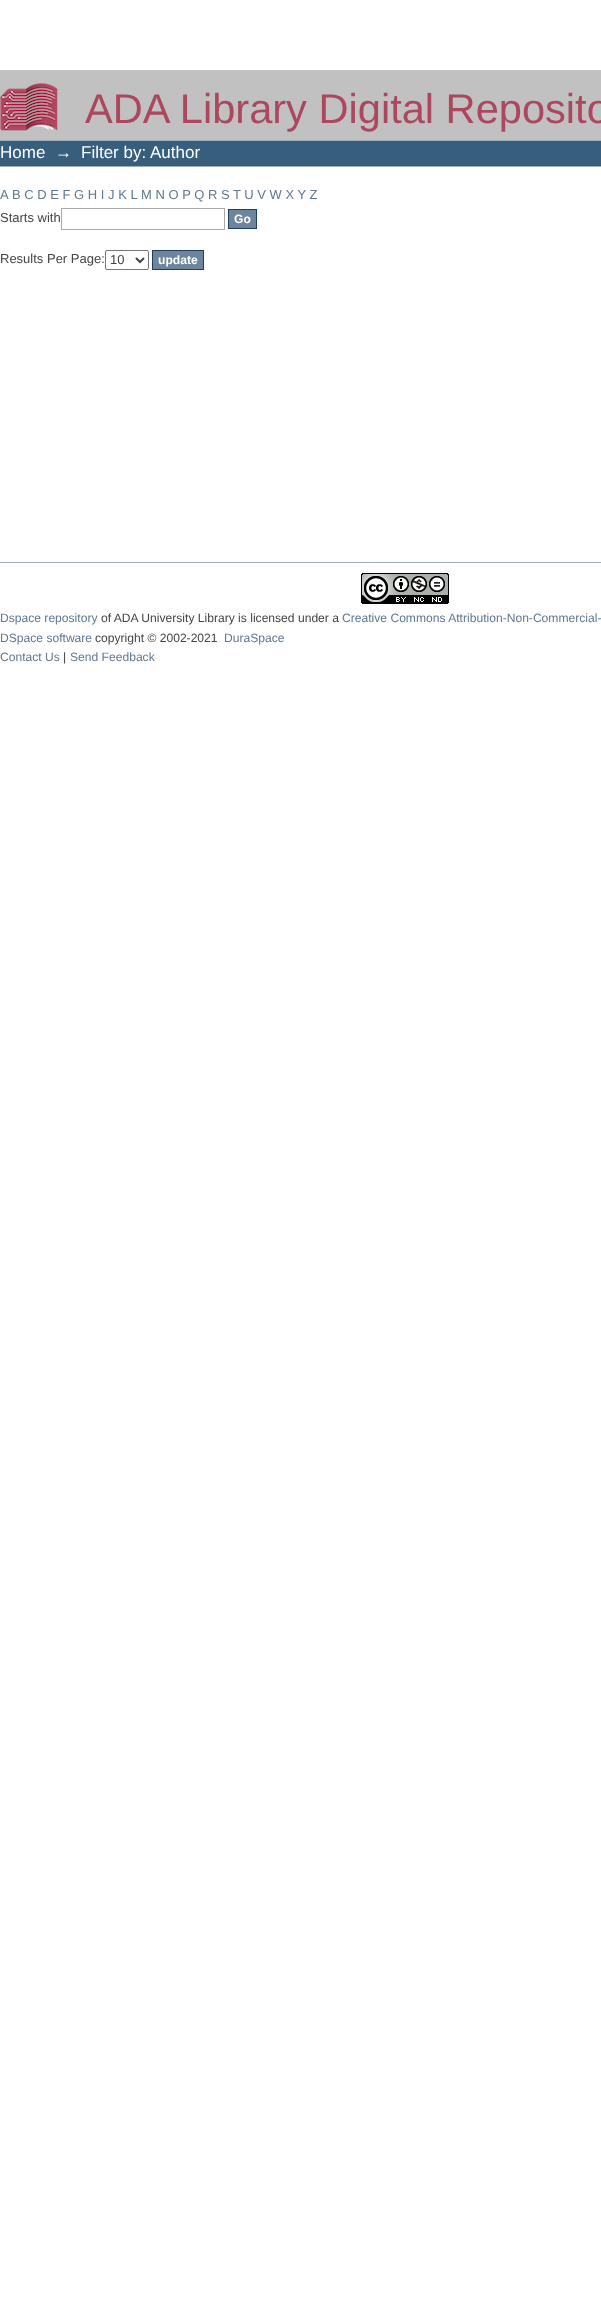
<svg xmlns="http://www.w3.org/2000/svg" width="601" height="2297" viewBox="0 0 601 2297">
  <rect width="100%" height="100%" fill="#ffffff"/>
  <rect x="0" y="70" width="601" height="70" fill="#c1c1c1"/>
  <image x="0" y="83" width="58" height="48" href="img1.png"/>
  <text x="85" y="123" font-family="Liberation Sans" font-size="41.6" fill="#ac475e">ADA Library Digital Reposito</text>
  <rect x="0" y="141" width="601" height="25" fill="#375e7d"/>
  <rect x="0" y="140" width="601" height="1" fill="#9cacba"/>
  <rect x="0" y="166" width="601" height="1" fill="#9cacba"/>
  <text x="0" y="158" font-family="Liberation Sans" font-size="17" fill="#ffffff">Home</text>
  <text x="55" y="158" font-family="Liberation Sans" font-size="17" fill="#ffffff">→</text>
  <text x="81" y="158" font-family="Liberation Sans" font-size="17" fill="#ffffff">Filter by: Author</text>
  <text x="0" y="199" font-family="Liberation Sans" font-size="13" fill="#607890">A</text>
  <text x="12" y="199" font-family="Liberation Sans" font-size="13" fill="#607890">B C D E F G H I J K L</text>
  <text x="141" y="199" font-family="Liberation Sans" font-size="13" fill="#607890">M N O P Q R S T U V W X Y Z</text>
  <text x="0" y="222" font-family="Liberation Sans" font-size="13" fill="#444444">Starts with</text>
  <rect x="61.5" y="208.5" width="163" height="21" fill="none" stroke="#aaaaaa"/>
  <rect x="228.5" y="209.5" width="28" height="19" fill="#6d859c" stroke="#1f3f5e"/>
  <text x="234" y="223" font-family="Liberation Sans" font-size="12.1" font-weight="bold" fill="#ffffff">Go</text>
  <text x="0" y="263" font-family="Liberation Sans" font-size="13" fill="#444444">Results Per Page:</text>
  <rect x="105.5" y="250.5" width="43" height="19" rx="1.5" fill="none" stroke="#767676"/>
  <path d="M136 258L140 262L144 258" fill="none" stroke="#444444" stroke-width="2"/>
  <text x="110" y="264" font-family="Liberation Sans" font-size="13" fill="#444444">10</text>
  <rect x="152.5" y="250.5" width="51" height="19" fill="#6d859c" stroke="#1f3f5e"/>
  <text x="158" y="264" font-family="Liberation Sans" font-size="12.1" font-weight="bold" fill="#ffffff">update</text>
  <rect x="0" y="562" width="601" height="1" fill="#9cacba"/>
  <image x="361" y="573" width="88" height="31" href="img2.png"/>
  <text x="0" y="622" font-family="Liberation Sans" font-size="12.1" fill="#607890">Dspace repository</text>
  <text x="101" y="622" font-family="Liberation Sans" font-size="12.1" fill="#444444">of ADA University Library is licensed under a</text>
  <text x="342" y="622" font-family="Liberation Sans" font-size="12.1" fill="#607890">Creative Commons Attribution-Non-Commercial-</text>
  <text x="0" y="642" font-family="Liberation Sans" font-size="12.1" fill="#607890">DSpace software</text>
  <text x="95" y="642" font-family="Liberation Sans" font-size="12.1" fill="#444444">copyright © 2002-2021</text>
  <text x="224" y="642" font-family="Liberation Sans" font-size="12.1" fill="#607890">DuraSpace</text>
  <text x="0" y="661" font-family="Liberation Sans" font-size="12.1" fill="#607890">Contact Us</text>
  <text x="63" y="661" font-family="Liberation Sans" font-size="12.1" fill="#444444">|</text>
  <text x="70" y="661" font-family="Liberation Sans" font-size="12.1" fill="#607890">Send Feedback</text>
</svg>
